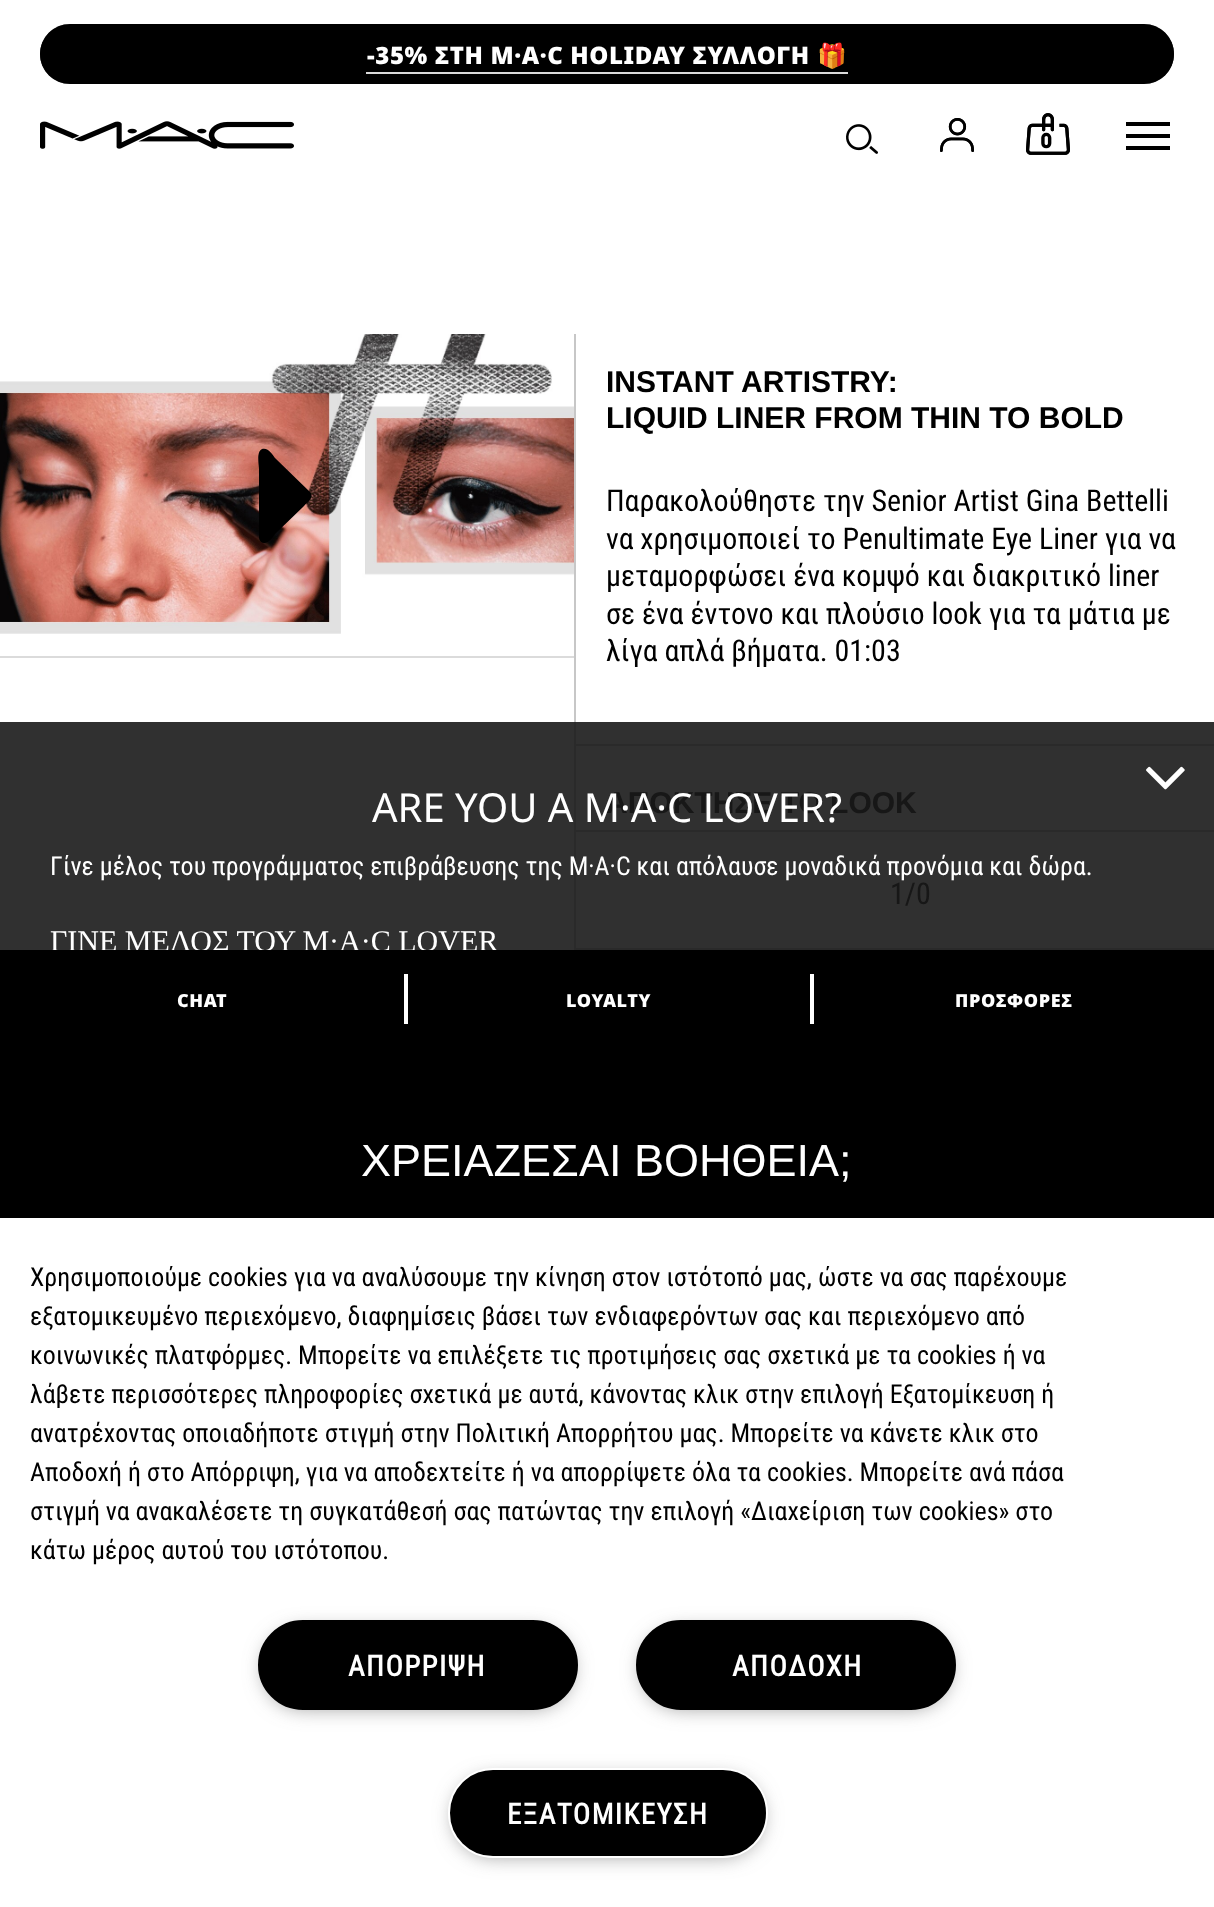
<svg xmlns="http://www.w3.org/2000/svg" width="1214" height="1907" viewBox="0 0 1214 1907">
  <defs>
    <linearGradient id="g1" gradientUnits="userSpaceOnUse" x1="40" y1="54" x2="80" y2="54"><stop offset="0" stop-color="#000000" stop-opacity="0.9"/><stop offset="1" stop-color="#000000" stop-opacity="0.1"/></linearGradient>
    <linearGradient id="g2" gradientUnits="userSpaceOnUse" x1="1174" y1="54" x2="1134" y2="54"><stop offset="0" stop-color="#000000" stop-opacity="0.9"/><stop offset="1" stop-color="#000000" stop-opacity="0.1"/></linearGradient>
    <filter id="blur1" x="-50%" y="-200%" width="200%" height="500%"><feGaussianBlur stdDeviation="10"/></filter>
  </defs>
  <rect width="100%" height="100%" fill="#ffffff"/>
  <rect x="0" y="722" width="1214" height="228" fill="#303030"/>
  <rect x="40" y="24" width="1134" height="60" rx="30" fill="#000000"/>
  <path d="M70 24H80V84H70C53.5 84 40 70.5 40 54C40 37.5 53.5 24 70 24Z" fill="url(#g1)"/>
  <text x="367" y="64" font-family="Noto Sans" font-size="24" font-weight="900" letter-spacing="0.6" fill="#ffffff">-35% ΣΤΗ M·A·C HOLIDAY ΣΥΛΛΟΓΗ</text>
  <rect x="366" y="72" width="482" height="2" fill="#dbdbdb"/>
  <text x="817" y="64" font-family="Noto Color Emoji" font-size="24" font-weight="bold" letter-spacing="0.6" fill="#ffffff">🎁</text>
  <path d="M1134 24H1144C1160.5 24 1174 37.5 1174 54C1174 70.5 1160.5 84 1144 84H1134Z" fill="url(#g2)"/>
  <image x="40" y="121" width="254" height="28" href="img1.png"/>
  <image x="846" y="124" width="32" height="30" href="img2.png"/>
  <image x="940" y="118" width="34" height="34" href="img3.png"/>
  <image x="940" y="118" width="34" height="34" href="img4.png"/>
  <image x="1026" y="113" width="44" height="42" href="img5.png"/>
  <image x="1026" y="113" width="44" height="42" href="img6.png"/>
  <text x="1040" y="148" font-family="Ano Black" font-size="20" font-weight="900" fill="#000000">0</text>
  <path d="M1126 122H1170V126H1126ZM1126 134H1170V138H1126ZM1126 146H1170V150H1126Z" fill="#000000"/>
  <rect x="0" y="656" width="574" height="2" fill="#dbdbdb"/>
  <image x="0" y="334" width="574" height="300" href="img7.png"/>
  <path d="M259 537V469C259 465 256 452 262 449C268 447 273 455 275 458L310 492C315 498 306 503 303 507L275 534C273 537 267 546 261 542C260 541 259 539 259 537Z" fill="#000000"/>
  <rect x="574" y="334" width="2" height="388" fill="#c7c7c7"/>
  <text x="606" y="392" font-family="Liberation Sans" font-size="30" font-weight="bold" fill="#000000">INSTANT ARTISTRY:</text>
  <text x="606" y="428" font-family="Liberation Sans" font-size="30" font-weight="bold" fill="#000000">LIQUID LINER FROM THIN TO BOLD</text>
  <text x="606" y="511" font-family="Roboto Condensed" font-size="30" fill="#000000">Παρακολούθηστε την Senior Artist Gina Bettelli</text>
  <text x="606" y="549" font-family="Roboto Condensed" font-size="30" fill="#000000">να χρησιμοποιεί το Penultimate Eye Liner για να</text>
  <text x="606" y="586" font-family="Roboto Condensed" font-size="30" fill="#000000">μεταμορφώσει ένα κομψό και διακριτικό liner</text>
  <text x="606" y="624" font-family="Roboto Condensed" font-size="30" fill="#000000">σε ένα έντονο και πλούσιο look για τα μάτια με</text>
  <text x="606" y="661" font-family="Roboto Condensed" font-size="30" fill="#000000">λίγα απλά βήματα. 01:03</text>
  <rect x="574" y="744" width="640" height="2" fill="#2a2a2a"/>
  <rect x="574" y="722" width="2" height="228" fill="#2a2a2a"/>
  <text x="606" y="813" font-family="Liberation Sans" font-size="30" font-weight="bold" fill="#171717">ΑΠΟΚΤΗΣΕ ΤΟ LOOK</text>
  <rect x="576" y="830" width="638" height="2" fill="#2a2a2a"/>
  <rect x="576" y="948" width="638" height="2" fill="#2a2a2a"/>
  <text x="890" y="904" font-family="Roboto Condensed" font-size="30" fill="#171717">1/0</text>
  <image x="1146" y="766" width="39" height="24" href="img8.png"/>
  <text x="372" y="822" font-family="Noto Sans" font-size="40" fill="#ffffff">ARE YOU A M·A·C LOVER?</text>
  <text x="50" y="875" font-family="Roboto Condensed" font-size="26" fill="#ffffff">Γίνε μέλος του προγράμματος επιβράβευσης της M·A·C και απόλαυσε μοναδικά προνόμια και δώρα.</text>
  <text x="50" y="951" font-family="Liberation Serif" font-size="30" fill="#ffffff">ΓΙΝΕ ΜΕΛΟΣ ΤΟΥ M·A·C LOVER</text>
  <rect x="0" y="950" width="1214" height="268" fill="#000000"/>
  <text x="177" y="1007" font-family="Noto Sans" font-size="18" font-weight="900" letter-spacing="0.6" fill="#ffffff">CHAT</text>
  <rect x="404" y="974" width="4" height="50" fill="#ffffff"/>
  <text x="566" y="1007" font-family="Noto Sans" font-size="18" font-weight="900" letter-spacing="0.6" fill="#ffffff">LOYALTY</text>
  <rect x="810" y="974" width="4" height="50" fill="#ffffff"/>
  <text x="955" y="1007" font-family="Noto Sans" font-size="18" font-weight="900" letter-spacing="0.6" fill="#ffffff">ΠΡΟΣΦΟΡΕΣ</text>
  <text x="361" y="1176" font-family="Liberation Sans" font-size="45" fill="#ffffff">ΧΡΕΙΑΖΕΣΑΙ ΒΟΗΘΕΙΑ;</text>
  <text x="30" y="1286" font-family="Roboto Condensed" font-size="26" fill="#000000">Χρησιμοποιούμε cookies για να αναλύσουμε την κίνηση στον ιστότοπό μας, ώστε να σας παρέχουμε</text>
  <text x="30" y="1325" font-family="Roboto Condensed" font-size="26" fill="#000000">εξατομικευμένο περιεχόμενο, διαφημίσεις βάσει των ενδιαφερόντων σας και περιεχόμενο από</text>
  <text x="30" y="1364" font-family="Roboto Condensed" font-size="26" fill="#000000">κοινωνικές πλατφόρμες. Μπορείτε να επιλέξετε τις προτιμήσεις σας σχετικά με τα cookies ή να</text>
  <text x="30" y="1403" font-family="Roboto Condensed" font-size="26" fill="#000000">λάβετε περισσότερες πληροφορίες σχετικά με αυτά, κάνοντας κλικ στην επιλογή Εξατομίκευση ή</text>
  <text x="30" y="1442" font-family="Roboto Condensed" font-size="26" fill="#000000">ανατρέχοντας οποιαδήποτε στιγμή στην Πολιτική Απορρήτου μας. Μπορείτε να κάνετε κλικ στο</text>
  <text x="30" y="1481" font-family="Roboto Condensed" font-size="26" fill="#000000">Αποδοχή ή στο Απόρριψη, για να αποδεχτείτε ή να απορρίψετε όλα τα cookies. Μπορείτε ανά πάσα</text>
  <text x="30" y="1520" font-family="Roboto Condensed" font-size="26" fill="#000000">στιγμή να ανακαλέσετε τη συγκατάθεσή σας πατώντας την επιλογή «Διαχείριση των cookies» στο</text>
  <text x="30" y="1559" font-family="Roboto Condensed" font-size="26" fill="#000000">κάτω μέρος αυτού του ιστότοπου.</text>
  <rect x="264" y="1630" width="308" height="78" rx="39" fill="#999999" filter="url(#blur1)"/>
  <rect x="259" y="1621" width="318" height="88" rx="44" fill="#000000" stroke="#000000" stroke-width="2"/>
  <text x="348" y="1676" font-family="Roboto Condensed" font-size="28.75" font-weight="bold" letter-spacing="1.5" fill="#ffffff">ΑΠΟΡΡΙΨΗ</text>
  <rect x="642" y="1630" width="308" height="78" rx="39" fill="#999999" filter="url(#blur1)"/>
  <rect x="637" y="1621" width="318" height="88" rx="44" fill="#000000" stroke="#000000" stroke-width="2"/>
  <text x="732" y="1676" font-family="Roboto Condensed" font-size="28.75" font-weight="bold" letter-spacing="1.5" fill="#ffffff">ΑΠΟΔΟΧΗ</text>
  <rect x="454" y="1778" width="308" height="78" rx="39" fill="#999999" filter="url(#blur1)"/>
  <rect x="449" y="1769" width="318" height="88" rx="44" fill="#000000" stroke="#ffffff" stroke-width="2"/>
  <text x="507" y="1824" font-family="Roboto Condensed" font-size="28.75" font-weight="bold" letter-spacing="1.5" fill="#ffffff">ΕΞΑΤΟΜΙΚΕΥΣΗ</text>
</svg>
